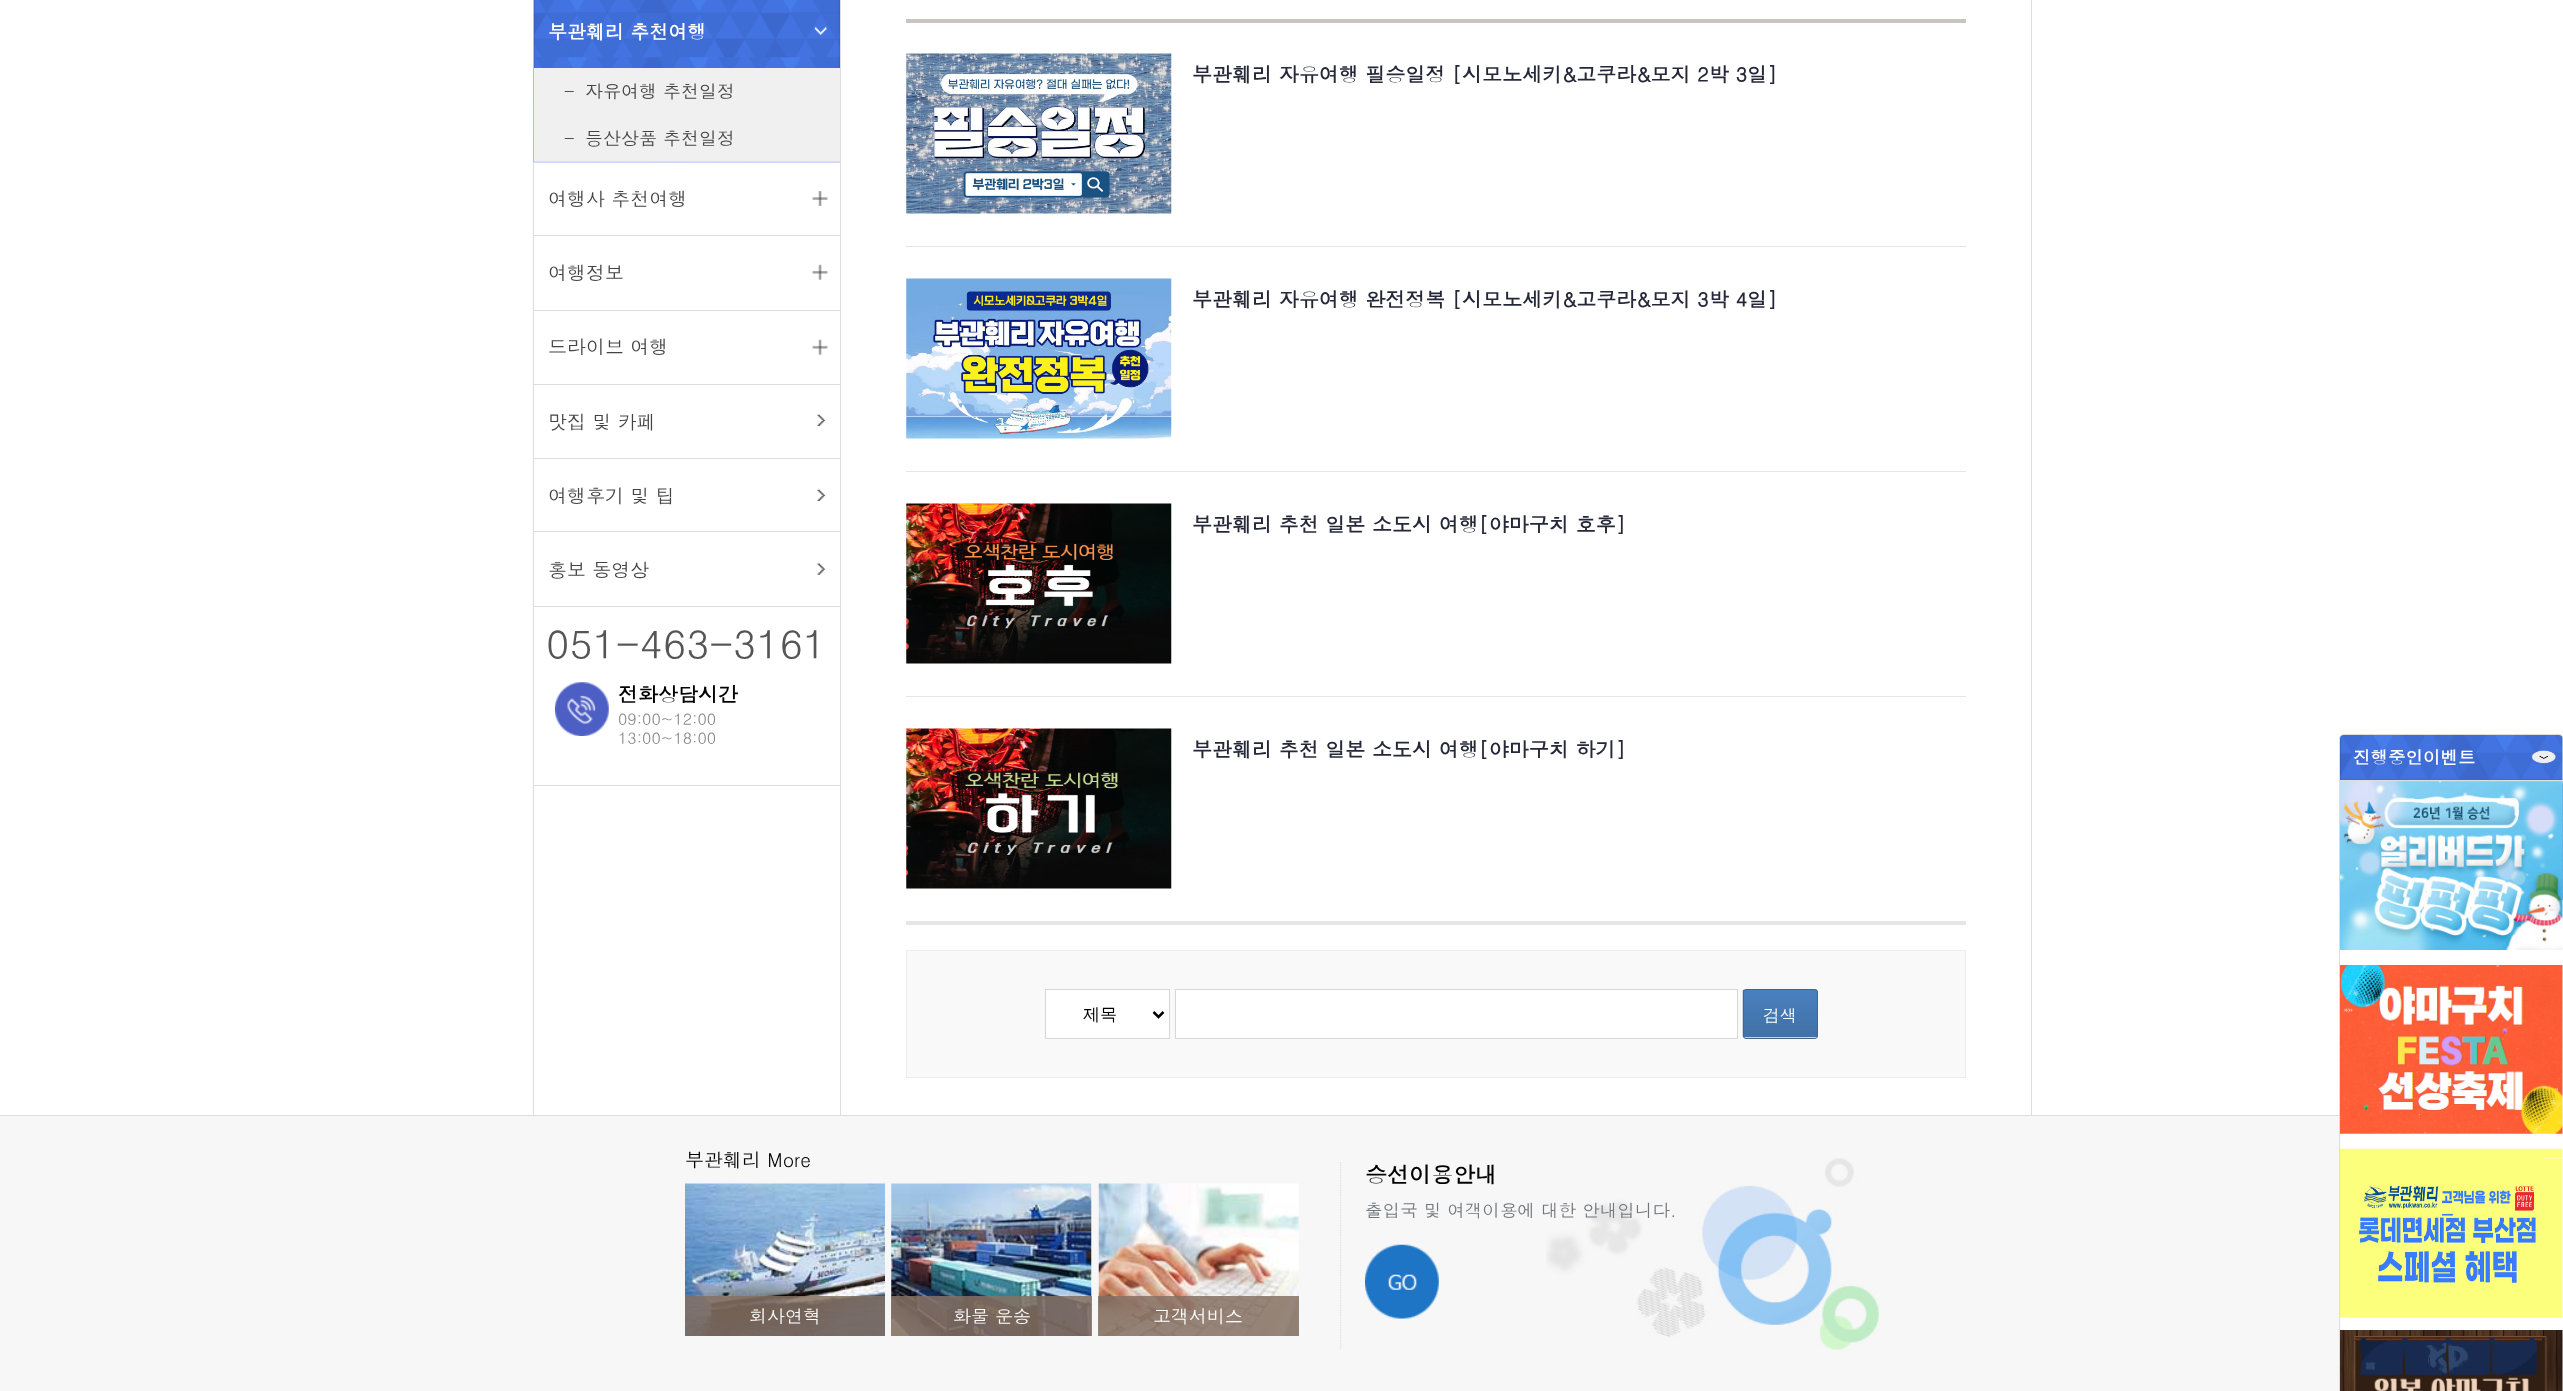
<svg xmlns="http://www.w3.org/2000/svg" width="2563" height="1391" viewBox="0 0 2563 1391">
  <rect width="100%" height="100%" fill="#ffffff"/>
  <rect x="533" y="0" width="1" height="1115" fill="#dddddd"/>
  <image x="533" y="0" width="307" height="163" href="img1.png"/>
  <rect x="534" y="161" width="306" height="1" fill="#dddddd"/>
  <image x="814" y="27" width="13" height="8" href="img2.png"/>
  <text x="548" y="39" font-family="Dotum" font-size="19" font-weight="bold" fill="#ffffff">부관훼리 추천여행</text>
  <rect x="534" y="68" width="306" height="93" fill="#f0f0f0"/>
  <text x="564" y="98" font-family="Dotum" font-size="18" fill="#444444">-</text>
  <text x="585" y="98" font-family="Dotum" font-size="18" fill="#444444">자유여행 추천일정</text>
  <text x="564" y="145" font-family="Dotum" font-size="18" fill="#444444">-</text>
  <text x="585" y="145" font-family="Dotum" font-size="18" fill="#444444">등산상품 추천일정</text>
  <rect x="534" y="235" width="306" height="1" fill="#dddddd"/>
  <image x="812" y="191" width="16" height="15" href="img3.png"/>
  <text x="548" y="206" font-family="Dotum" font-size="19" fill="#444444">여행사 추천여행</text>
  <rect x="534" y="310" width="306" height="1" fill="#dddddd"/>
  <image x="812" y="264" width="16" height="16" href="img4.png"/>
  <text x="548" y="280" font-family="Dotum" font-size="19" fill="#444444">여행정보</text>
  <rect x="534" y="384" width="306" height="1" fill="#dddddd"/>
  <image x="812" y="339" width="16" height="16" href="img4.png"/>
  <text x="548" y="354" font-family="Dotum" font-size="19" fill="#444444">드라이브 여행</text>
  <rect x="534" y="458" width="306" height="1" fill="#dddddd"/>
  <image x="817" y="414" width="9" height="12" href="img5.png"/>
  <text x="548" y="429" font-family="Dotum" font-size="19" fill="#444444">맛집 및 카페</text>
  <rect x="534" y="531" width="306" height="1" fill="#dddddd"/>
  <image x="817" y="489" width="9" height="12" href="img5.png"/>
  <text x="548" y="503" font-family="Dotum" font-size="19" fill="#444444">여행후기 및 팁</text>
  <rect x="534" y="606" width="306" height="1" fill="#dddddd"/>
  <image x="817" y="563" width="9" height="12" href="img6.png"/>
  <text x="548" y="577" font-family="Dotum" font-size="19" fill="#444444">홍보 동영상</text>
  <rect x="534" y="785" width="306" height="1" fill="#dddddd"/>
  <text x="546" y="659" font-family="Dotum" font-size="40" fill="#555555">051-463-3161</text>
  <image x="555" y="682" width="54" height="54" href="img7.png"/>
  <text x="618" y="702" font-family="Dotum" font-size="20" font-weight="bold" fill="#000000">전화상담시간</text>
  <text x="618" y="725" font-family="Dotum" font-size="16" fill="#888888">09:00~12:00</text>
  <text x="618" y="744" font-family="Dotum" font-size="16" fill="#888888">13:00~18:00</text>
  <rect x="2031" y="0" width="1" height="1115" fill="#dddddd"/>
  <rect x="840" y="0" width="1" height="1115" fill="#dddddd"/>
  <rect x="906" y="19" width="1060" height="4" fill="#c8c5be"/>
  <rect x="906" y="921" width="1060" height="4" fill="#e6e6e6"/>
  <rect x="906" y="246" width="1060" height="1" fill="#e6e6e6"/>
  <image x="906" y="53" width="266" height="161" href="img8.png"/>
  <text x="1192" y="82" font-family="Dotum" font-size="20" font-weight="bold" fill="#252839">부관훼리 자유여행 필승일정 [시모노세키&amp;고쿠라&amp;모지 2박 3일]</text>
  <rect x="906" y="471" width="1060" height="1" fill="#e6e6e6"/>
  <image x="906" y="278" width="266" height="161" href="img9.png"/>
  <text x="1192" y="307" font-family="Dotum" font-size="20" font-weight="bold" fill="#252839">부관훼리 자유여행 완전정복 [시모노세키&amp;고쿠라&amp;모지 3박 4일]</text>
  <rect x="906" y="696" width="1060" height="1" fill="#e6e6e6"/>
  <image x="906" y="503" width="266" height="161" href="img10.png"/>
  <text x="1192" y="532" font-family="Dotum" font-size="20" font-weight="bold" fill="#252839">부관훼리 추천 일본 소도시 여행[야마구치 호후]</text>
  <image x="906" y="728" width="266" height="161" href="img11.png"/>
  <text x="1192" y="757" font-family="Dotum" font-size="20" font-weight="bold" fill="#252839">부관훼리 추천 일본 소도시 여행[야마구치 하기]</text>
  <rect x="906.5" y="950.5" width="1059" height="127" fill="#f9f9f9" stroke="#ededed"/>
  <rect x="1045.5" y="989.5" width="124" height="49" fill="#ffffff" stroke="#d7d7d7"/>
  <path d="M1153.5 1012L1158.5 1017L1163.5 1012" fill="none" stroke="#000000" stroke-width="2.5"/>
  <text x="1083" y="1020" font-family="WenQuanYi Zen Hei" font-size="17" font-weight="500" fill="#000000">제목</text>
  <rect x="1175.5" y="989.5" width="562" height="49" fill="#ffffff" stroke="#d7d7d7"/>
  <image x="1742" y="989" width="76" height="49" href="img12.png"/>
  <rect x="1743.5" y="989.5" width="74" height="49" rx="2.5" fill="none" stroke="#49647f"/>
  <text x="1763" y="1022" font-family="Dotum" font-size="17" fill="#ffffff">검색</text>
  <rect x="2339.5" y="734.5" width="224" height="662" rx="4.5" fill="none" stroke="#dddddd"/>
  <image x="2340" y="735" width="223" height="45" href="img13.png"/>
  <rect x="2340" y="780" width="223" height="2" fill="#dddddd"/>
  <text x="2353" y="764" font-family="Dotum" font-size="17.5" font-weight="bold" fill="#ffffff">진행중인이벤트</text>
  <image x="2531" y="750" width="25" height="14" href="img14.png"/>
  <image x="2562" y="782" width="1" height="119" href="img19.png"/>
  <image x="2340" y="781" width="223" height="169" href="img15.png"/>
  <image x="2340" y="965" width="223" height="169" href="img16.png"/>
  <image x="2340" y="1148" width="223" height="170" href="img17.png"/>
  <image x="2340" y="1330" width="223" height="61" href="img18.png"/>
  <rect x="0" y="1116" width="2339" height="275" fill="#f7f7f7"/>
  <rect x="0" y="1115" width="2339" height="1" fill="#dddddd"/>
  <image x="1340" y="1162" width="2" height="187" href="img20.png"/>
  <text x="685" y="1167" font-family="Dotum" font-size="19" fill="#000000">부관훼리 More</text>
  <image x="685" y="1183" width="200" height="153" href="img21.png"/>
  <rect x="685" y="1296" width="200" height="40" fill="#867163" fill-opacity="0.85"/>
  <text x="749" y="1323" font-family="Dotum" font-size="18" fill="#ffffff">회사연혁</text>
  <image x="891" y="1183" width="201" height="153" href="img22.png"/>
  <rect x="891" y="1296" width="201" height="40" fill="#867163" fill-opacity="0.85"/>
  <text x="953" y="1323" font-family="Dotum" font-size="18" fill="#ffffff">화물 운송</text>
  <image x="1098" y="1183" width="201" height="153" href="img23.png"/>
  <rect x="1098" y="1296" width="201" height="40" fill="#867163" fill-opacity="0.85"/>
  <text x="1153" y="1323" font-family="Dotum" font-size="18" fill="#ffffff">고객서비스</text>
  <image x="1546" y="1158" width="333" height="192" href="img24.png"/>
  <text x="1365" y="1183" font-family="Dotum" font-size="22" font-weight="bold" fill="#000000">승선이용안내</text>
  <text x="1365" y="1217" font-family="Dotum" font-size="17.6" fill="#71777e">출입국 및 여객이용에 대한 안내입니다.</text>
  <image x="1365" y="1244" width="74" height="75" href="img25.png"/>
</svg>
